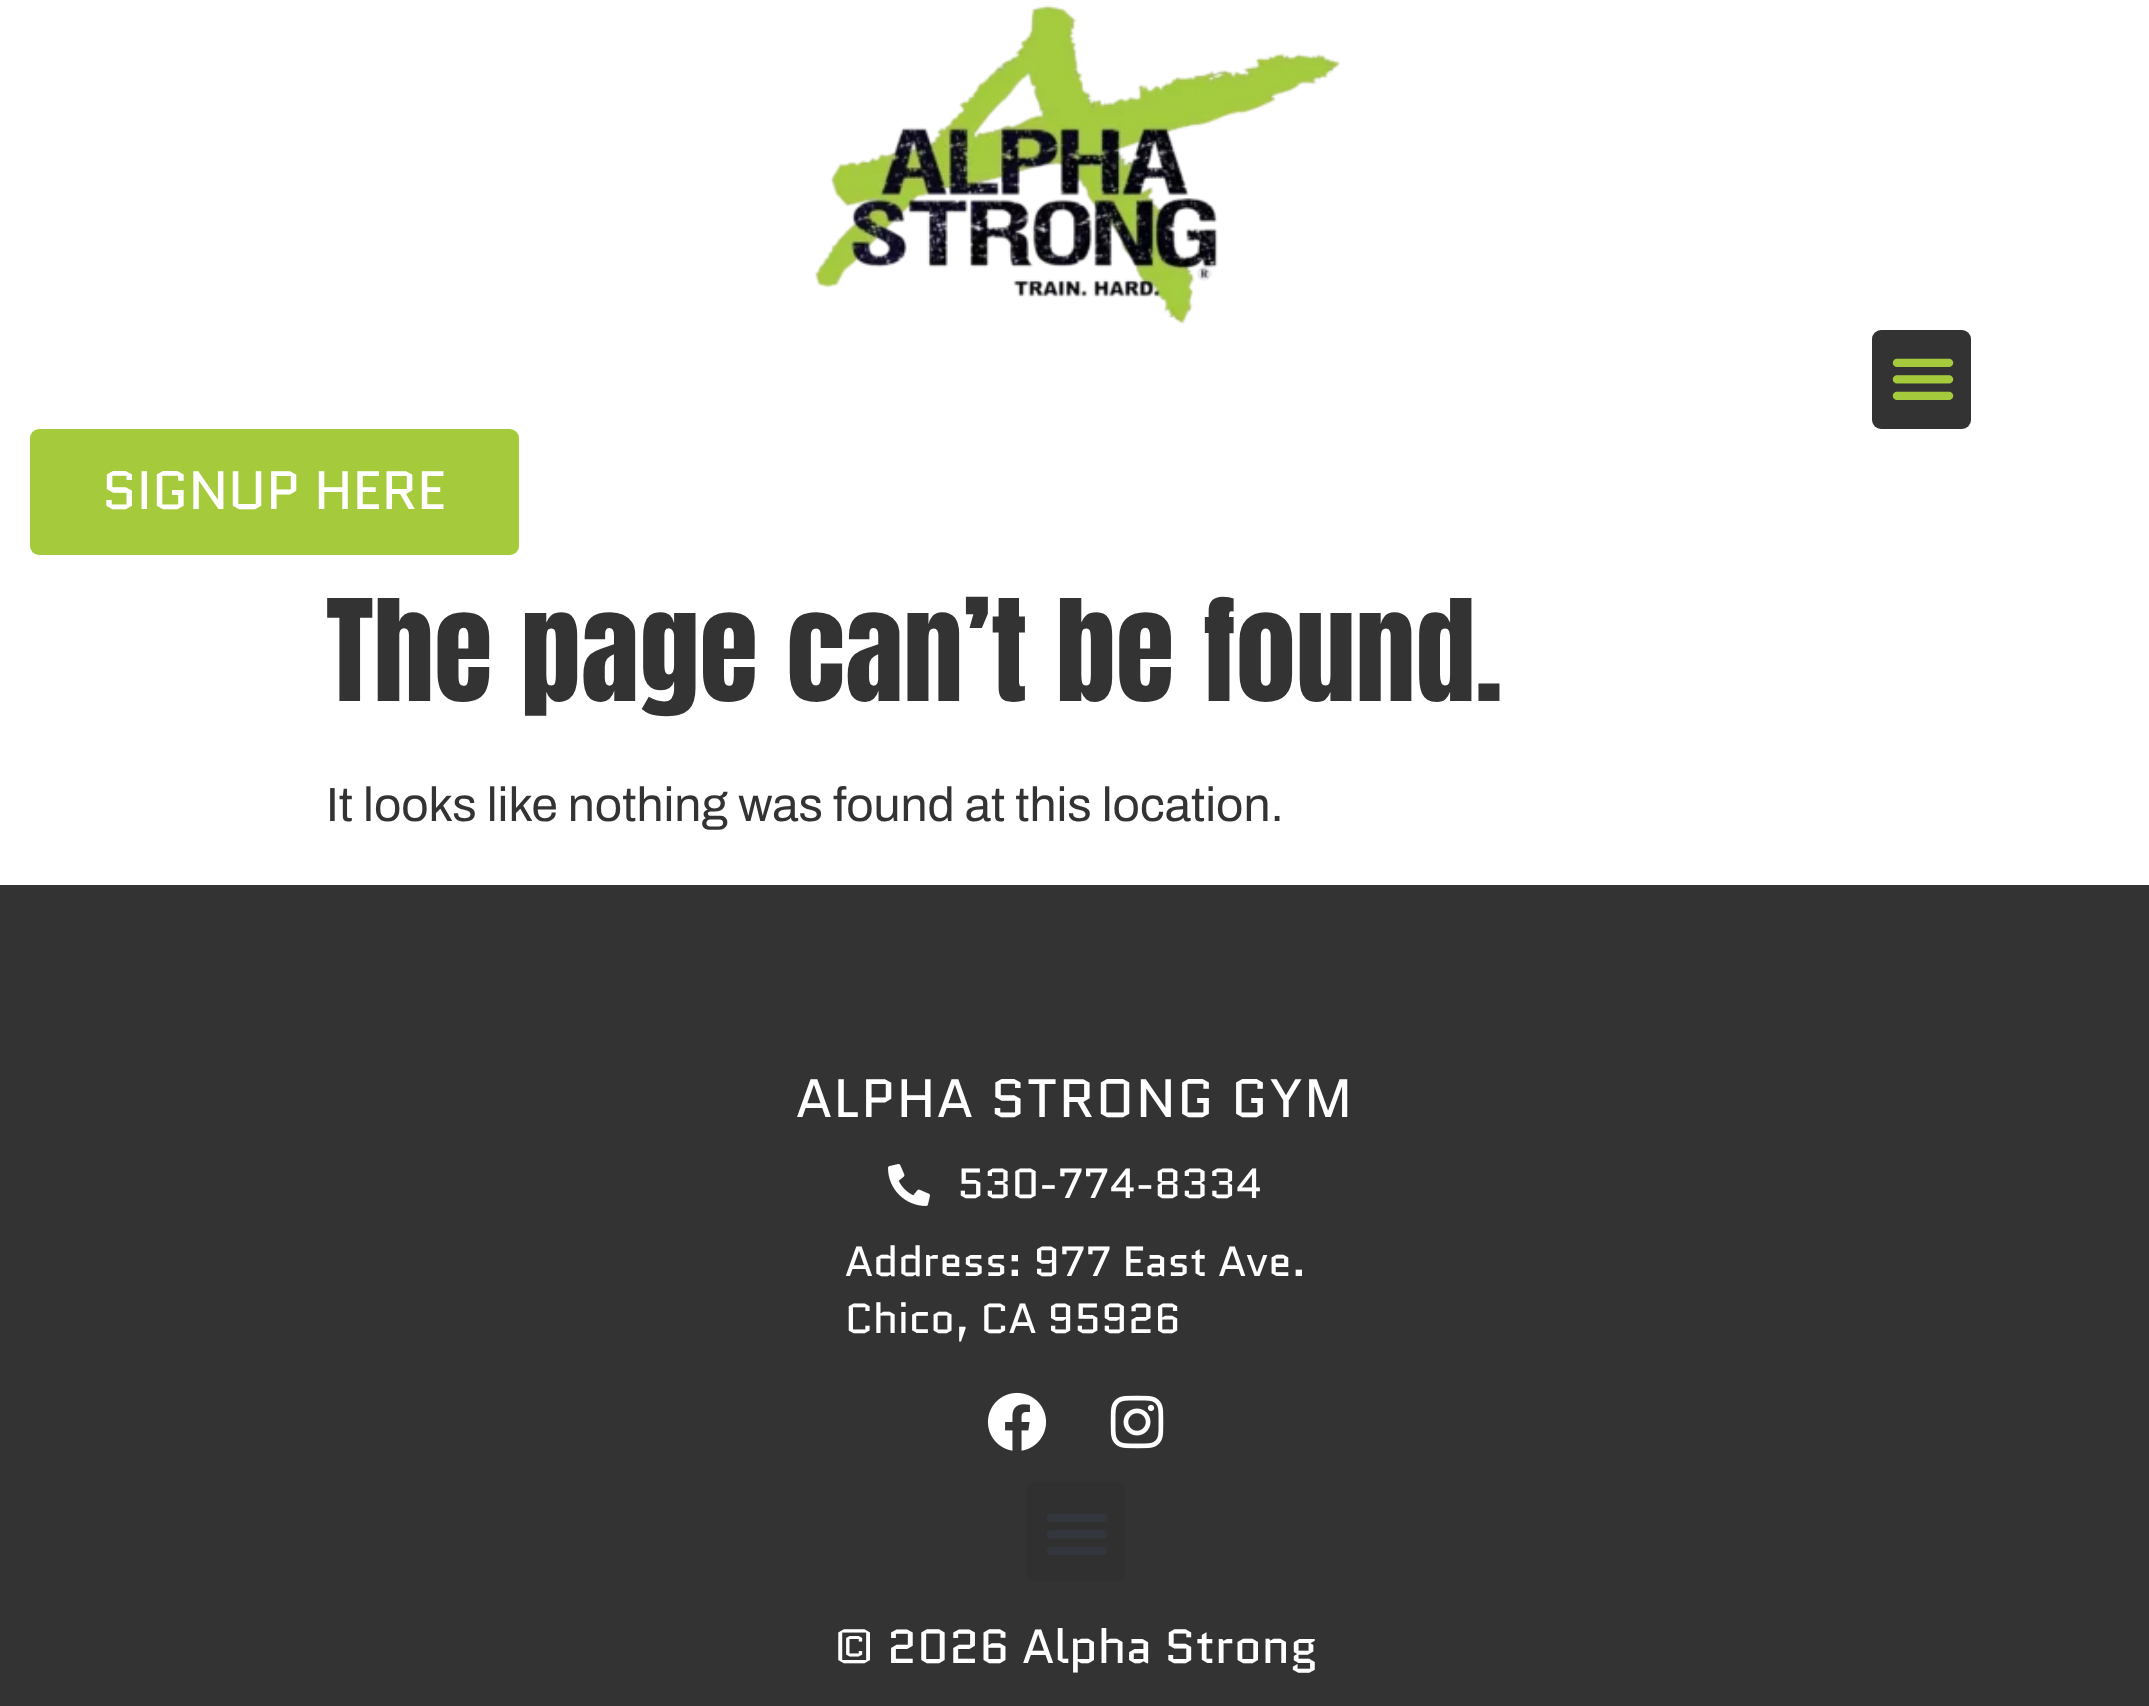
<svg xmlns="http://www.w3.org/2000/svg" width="2149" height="1706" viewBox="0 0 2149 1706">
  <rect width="100%" height="100%" fill="#ffffff"/>
  <image x="814" y="5" width="526" height="319" href="img1.png"/>
  <rect x="1872" y="330" width="99" height="99" rx="9" fill="#333333"/>
  <image x="1892" y="358" width="62" height="42" href="img2.png"/>
  <rect x="30" y="429" width="489" height="126" rx="9" fill="#a5cb3d"/>
  <text x="102" y="509" font-family="Quantico" font-size="54" fill="#ffffff">SIGNUP HERE</text>
  <text x="326" y="701" font-family="Anton" font-size="120" fill="#333333">The page can’t be found.</text>
  <text x="326" y="821" font-family="Archivo" font-size="48" fill="#333333">It looks like nothing was found at this location.</text>
  <rect x="0" y="885" width="2149" height="821" fill="#333333"/>
  <text x="796" y="1117" font-family="Quantico" font-size="54" letter-spacing="1.75" fill="#ffffff">ALPHA STRONG GYM</text>
  <image x="888" y="1164" width="42" height="42" href="img3.png"/>
  <text x="957" y="1198" font-family="Quantico" font-size="42" fill="#ffffff">530-774-8334</text>
  <text x="845" y="1276" font-family="Quantico" font-size="42" fill="#ffffff">Address: 977 East Ave.</text>
  <text x="845" y="1333" font-family="Quantico" font-size="42" fill="#ffffff">Chico, CA 95926</text>
  <image x="987" y="1392" width="60" height="59" href="img4.png"/>
  <image x="1110" y="1395" width="54" height="54" href="img5.png"/>
  <rect x="1026" y="1482" width="99" height="99" rx="9" fill="#303030"/>
  <image x="1047" y="1514" width="60" height="41" href="img6.png"/>
  <text x="834" y="1663" font-family="Quantico" font-size="48" fill="#ffffff">© 2026 Alpha Strong</text>
</svg>
